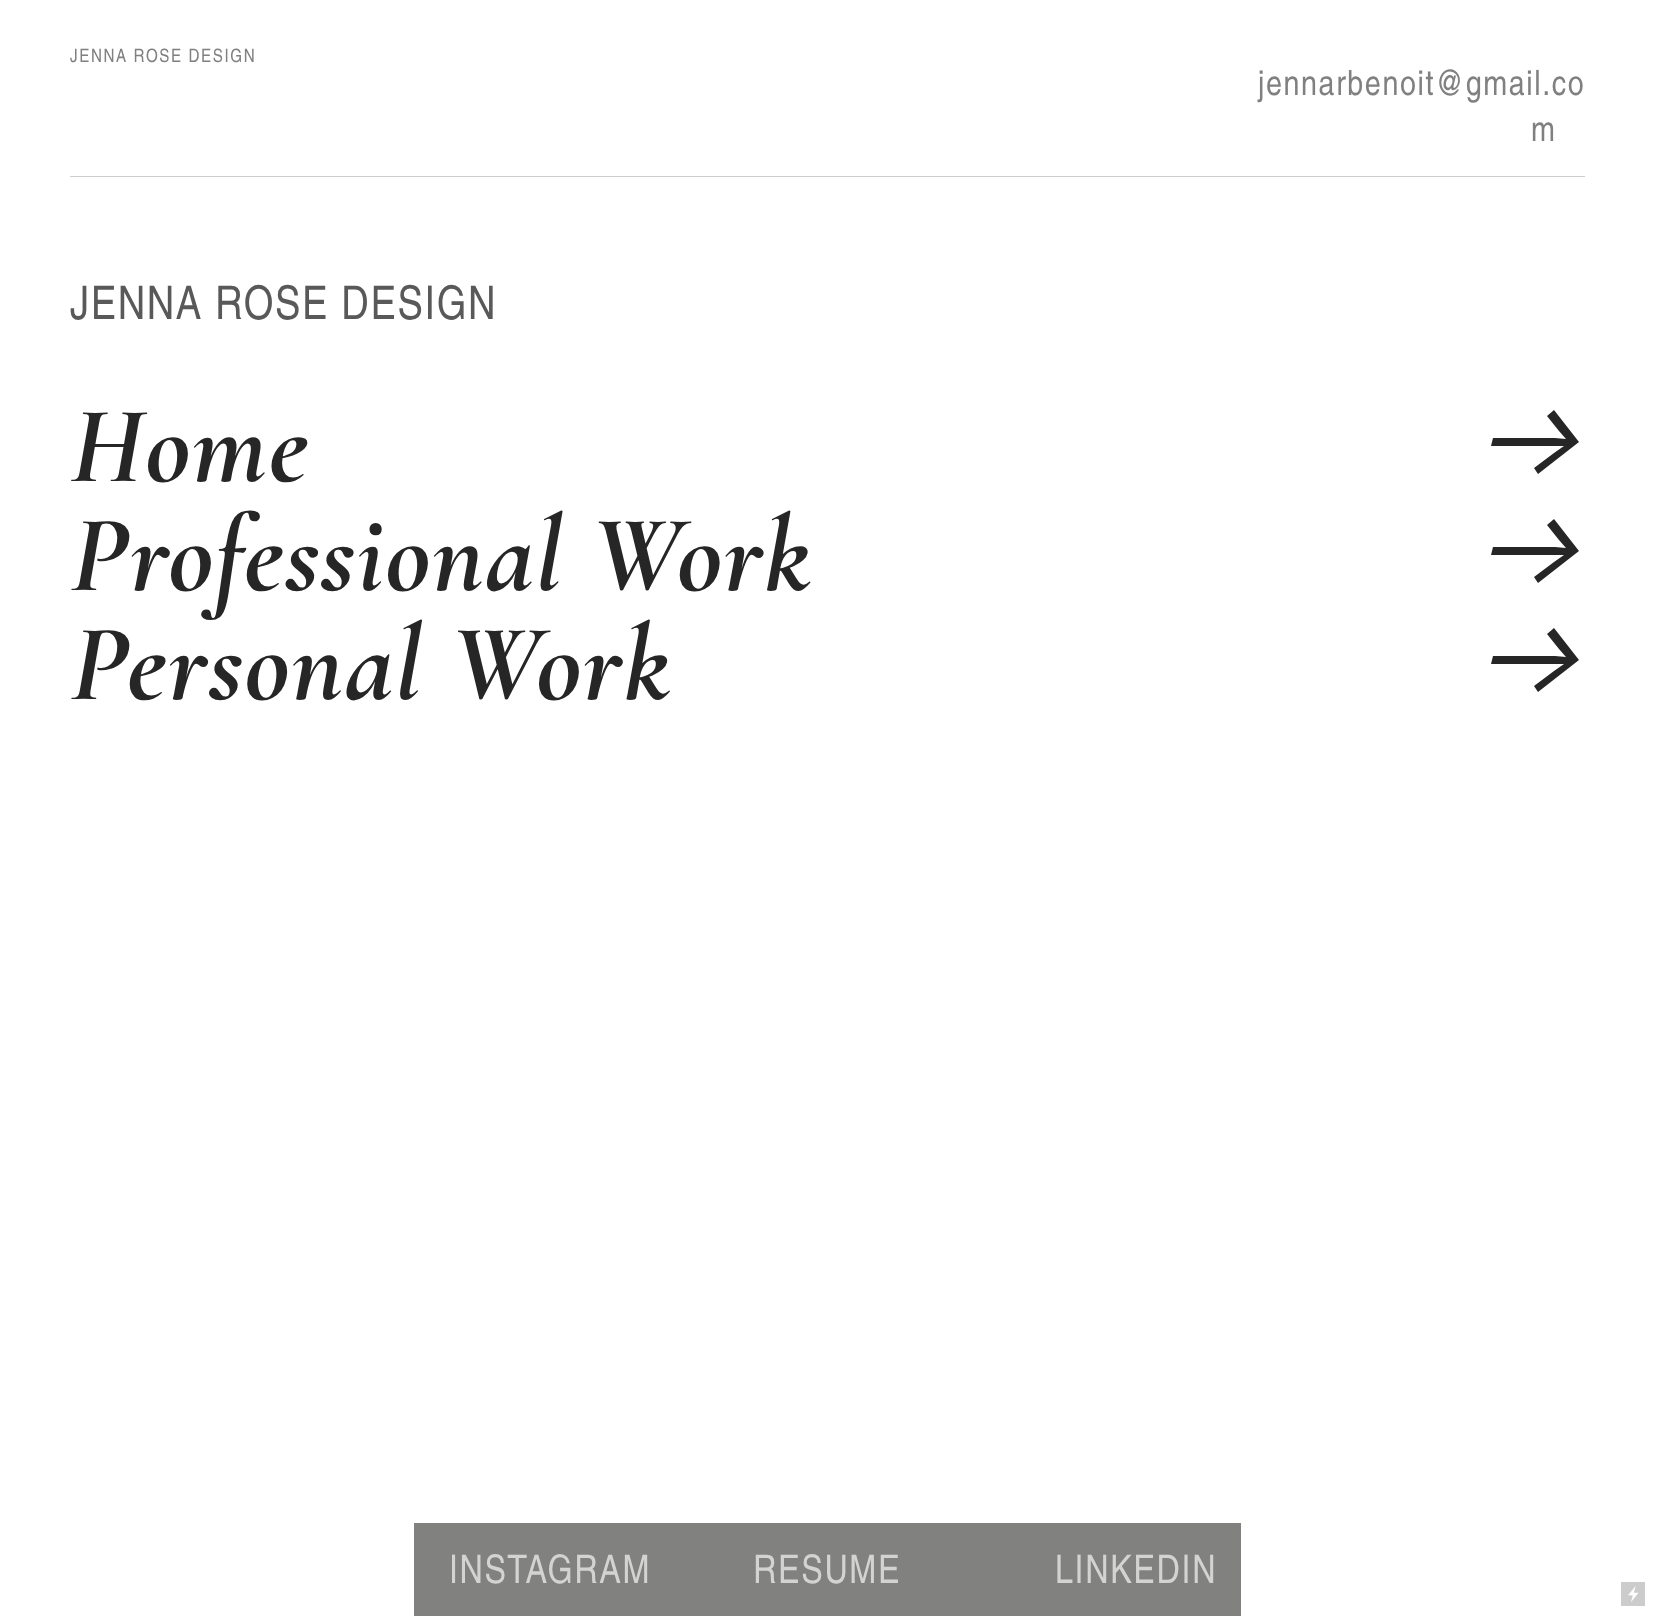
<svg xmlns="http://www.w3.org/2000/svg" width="1655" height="1616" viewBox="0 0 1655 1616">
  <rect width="100%" height="100%" fill="#ffffff"/>
  <text x="70" y="62" font-family="TeX Gyre Heros Cn" font-size="18.5" letter-spacing="1.6" fill="#808080">JENNA ROSE DESIGN</text>
  <text x="1258" y="95" font-family="TeX Gyre Heros Cn" font-size="35" letter-spacing="1.6" fill="#808080">jennarbenoit@gmail.co</text>
  <text x="1531" y="141" font-family="TeX Gyre Heros Cn" font-size="35" letter-spacing="1.6" fill="#808080">m</text>
  <rect x="70" y="176" width="1515" height="1" fill="#cdcdcd"/>
  <text x="70" y="319" font-family="TeX Gyre Heros Cn" font-size="46.5" letter-spacing="1.6" fill="#595959">JENNA ROSE DESIGN</text>
  <text x="70" y="481" font-family="Cormorant" font-size="109.5" font-weight="bold" font-style="italic" letter-spacing="1.6" fill="#262626">Home</text>
  <path d="M1491 446H1553H1564L1554 453L1534 468L1538 474L1579 442L1554 410L1547 416L1559 431L1566 439L1555 438H1493Z" fill="#262626"/>
  <text x="70" y="590" font-family="Cormorant" font-size="109.5" font-weight="bold" font-style="italic" letter-spacing="1.6" fill="#262626">Professional Work</text>
  <path d="M1491 555H1553H1564L1554 562L1534 577L1538 583L1579 551L1554 519L1547 525L1559 540L1566 548L1555 547H1493Z" fill="#262626"/>
  <text x="70" y="699" font-family="Cormorant" font-size="109.5" font-weight="bold" font-style="italic" letter-spacing="1.6" fill="#262626">Personal Work</text>
  <path d="M1491 664H1553H1564L1554 671L1534 686L1538 692L1579 660L1554 628L1547 634L1559 649L1566 657L1555 656H1493Z" fill="#262626"/>
  <rect x="414" y="1523" width="827" height="93" fill="#81817f"/>
  <text x="449" y="1583" font-family="TeX Gyre Heros Cn" font-size="39.5" letter-spacing="1.6" fill="#d3d3d2">INSTAGRAM</text>
  <text x="753" y="1583" font-family="TeX Gyre Heros Cn" font-size="39.5" letter-spacing="1.6" fill="#d3d3d2">RESUME</text>
  <text x="1055" y="1583" font-family="TeX Gyre Heros Cn" font-size="39.5" letter-spacing="1.6" fill="#d3d3d2">LINKEDIN</text>
  <rect x="1621" y="1582" width="24" height="24" fill="#cccccc"/>
  <image x="1628" y="1586" width="11" height="16" href="img1.png"/>
</svg>
